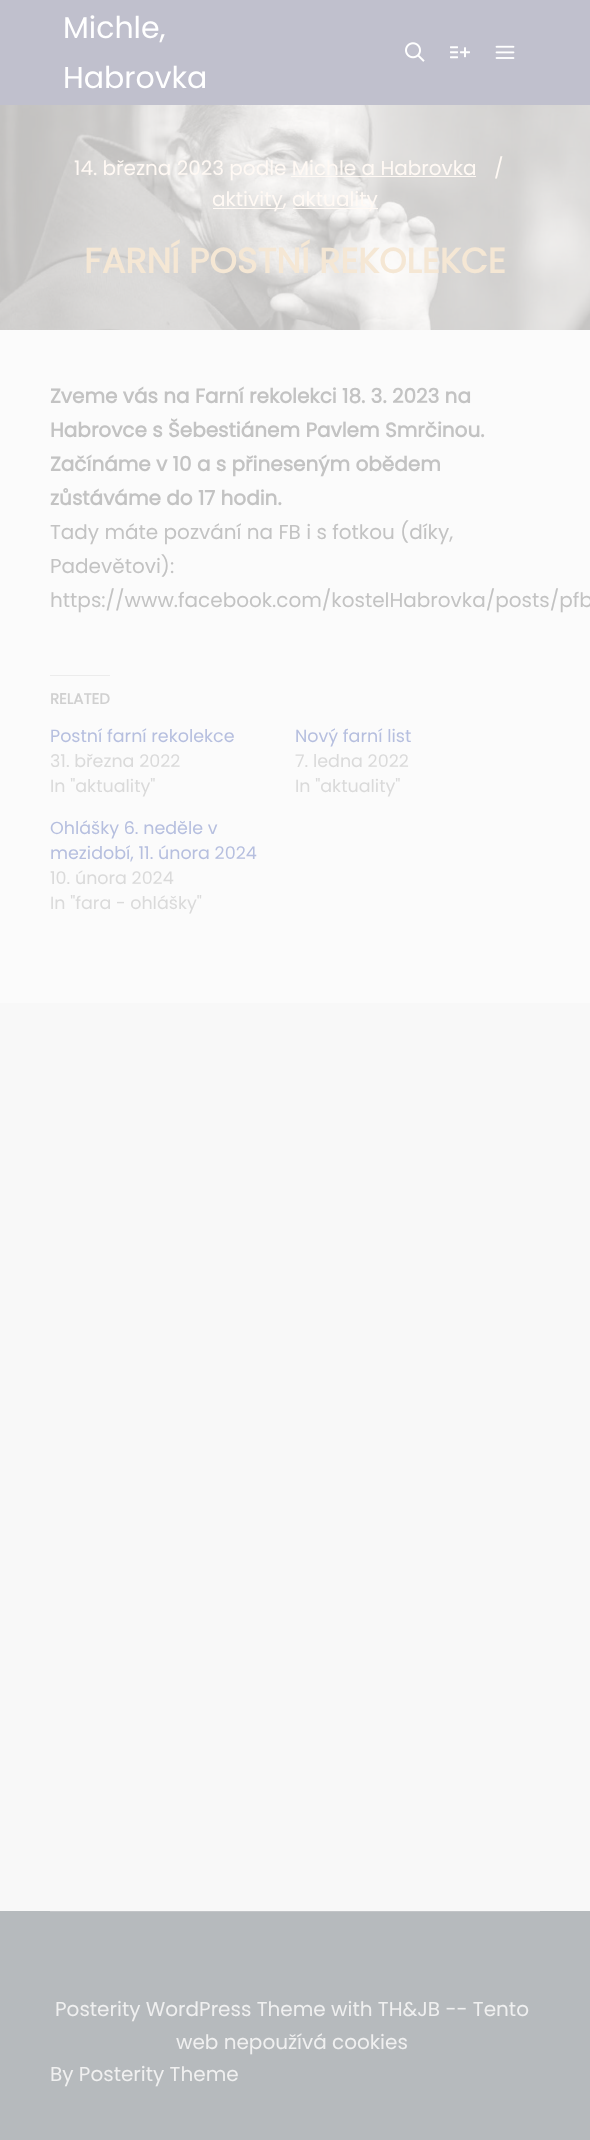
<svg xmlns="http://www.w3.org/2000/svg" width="590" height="2140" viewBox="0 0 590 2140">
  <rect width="100%" height="100%" fill="#f8f8f8"/>
  <rect x="0" y="0" width="590" height="105" fill="#c0c0cd"/>
  <text x="63" y="38" font-family="Poppins" font-size="30" fill="#ffffff">Michle,</text>
  <text x="63" y="88" font-family="Poppins" font-size="30" fill="#ffffff">Habrovka</text>
  <image x="405" y="42" width="20" height="20" href="img1.png"/>
  <image x="450" y="46" width="20" height="13" href="img2.png"/>
  <image x="495" y="45" width="20" height="14" href="img3.png"/>
  <image x="0" y="105" width="590" height="225" href="img4.png"/>
  <text x="74" y="175" font-family="Poppins" font-size="20" fill="#fff9f4">14. března 2023 podle Michle a Habrovka</text>
  <text x="494" y="175" font-family="Poppins" font-size="20" fill="#fff9f4">/</text>
  <rect x="291" y="176" width="185" height="1" fill="#fff9f4"/>
  <rect x="213" y="208" width="70" height="1" fill="#fff9f4"/>
  <text x="212" y="206" font-family="Poppins" font-size="20" fill="#fff9f4">aktivity,</text>
  <rect x="293" y="208" width="85" height="1" fill="#fff9f4"/>
  <text x="292" y="206" font-family="Poppins" font-size="20" fill="#fff9f4">aktuality</text>
  <text x="84" y="273" font-family="Poppins" font-size="35" font-weight="bold" fill="#f5e7d4">FARNÍ POSTNÍ REKOLEKCE</text>
  <rect x="0" y="330" width="590" height="673" fill="#fbfbfb"/>
  <text x="50" y="403" font-family="Poppins" font-size="20" font-weight="bold" fill="#c3c3c3">Zveme vás na Farní rekolekci 18. 3. 2023 na</text>
  <text x="50" y="437" font-family="Poppins" font-size="20" font-weight="bold" fill="#c3c3c3">Habrovce s Šebestiánem Pavlem Smrčinou.</text>
  <text x="50" y="471" font-family="Poppins" font-size="20" font-weight="bold" fill="#c3c3c3">Začínáme v 10 a s přineseným obědem</text>
  <text x="50" y="505" font-family="Poppins" font-size="20" font-weight="bold" fill="#c3c3c3">zůstáváme do 17 hodin.</text>
  <text x="50" y="539" font-family="Poppins" font-size="20" fill="#c3c3c3">Tady máte pozvání na FB i s fotkou (díky,</text>
  <text x="50" y="573" font-family="Poppins" font-size="20" fill="#c3c3c3">Padevětovi):</text>
  <text x="50" y="607" font-family="Poppins" font-size="20" fill="#c3c3c3">https://www.facebook.com/kostelHabrovka/posts/pfb</text>
  <rect x="50" y="675" width="60" height="1" fill="#ececec"/>
  <text x="50" y="704" font-family="Poppins" font-size="15" font-weight="bold" fill="#d0d0d0">RELATED</text>
  <text x="50" y="742" font-family="Poppins" font-size="17.5" fill="#b6bfdf">Postní farní rekolekce</text>
  <text x="50" y="767" font-family="Poppins" font-size="17.5" fill="#dadada">31. března 2022</text>
  <text x="50" y="792" font-family="Poppins" font-size="17.5" fill="#dadada">In "aktuality"</text>
  <text x="295" y="742" font-family="Poppins" font-size="17.5" fill="#b6bfdf">Nový farní list</text>
  <text x="295" y="767" font-family="Poppins" font-size="17.5" fill="#dadada">7. ledna 2022</text>
  <text x="295" y="792" font-family="Poppins" font-size="17.5" fill="#dadada">In "aktuality"</text>
  <text x="50" y="834" font-family="Poppins" font-size="17.5" fill="#b6bfdf">Ohlášky 6. neděle v</text>
  <text x="50" y="859" font-family="Poppins" font-size="17.5" fill="#b6bfdf">mezidobí, 11. února 2024</text>
  <text x="50" y="884" font-family="Poppins" font-size="17.5" fill="#dadada">10. února 2024</text>
  <text x="50" y="909" font-family="Poppins" font-size="17.5" fill="#dadada">In "fara - ohlášky"</text>
  <rect x="0" y="1911" width="590" height="229" fill="#b6babd"/>
  <rect x="50" y="1911" width="490" height="1" fill="#c2c4c7"/>
  <text x="55" y="2016" font-family="Poppins" font-size="20" fill="#f0f0f0">Posterity WordPress Theme with TH&amp;JB -- Tento</text>
  <text x="176" y="2049" font-family="Poppins" font-size="20" fill="#f0f0f0">web nepoužívá cookies</text>
  <text x="50" y="2081" font-family="Poppins" font-size="20" fill="#f0f0f0">By Posterity Theme</text>
</svg>
